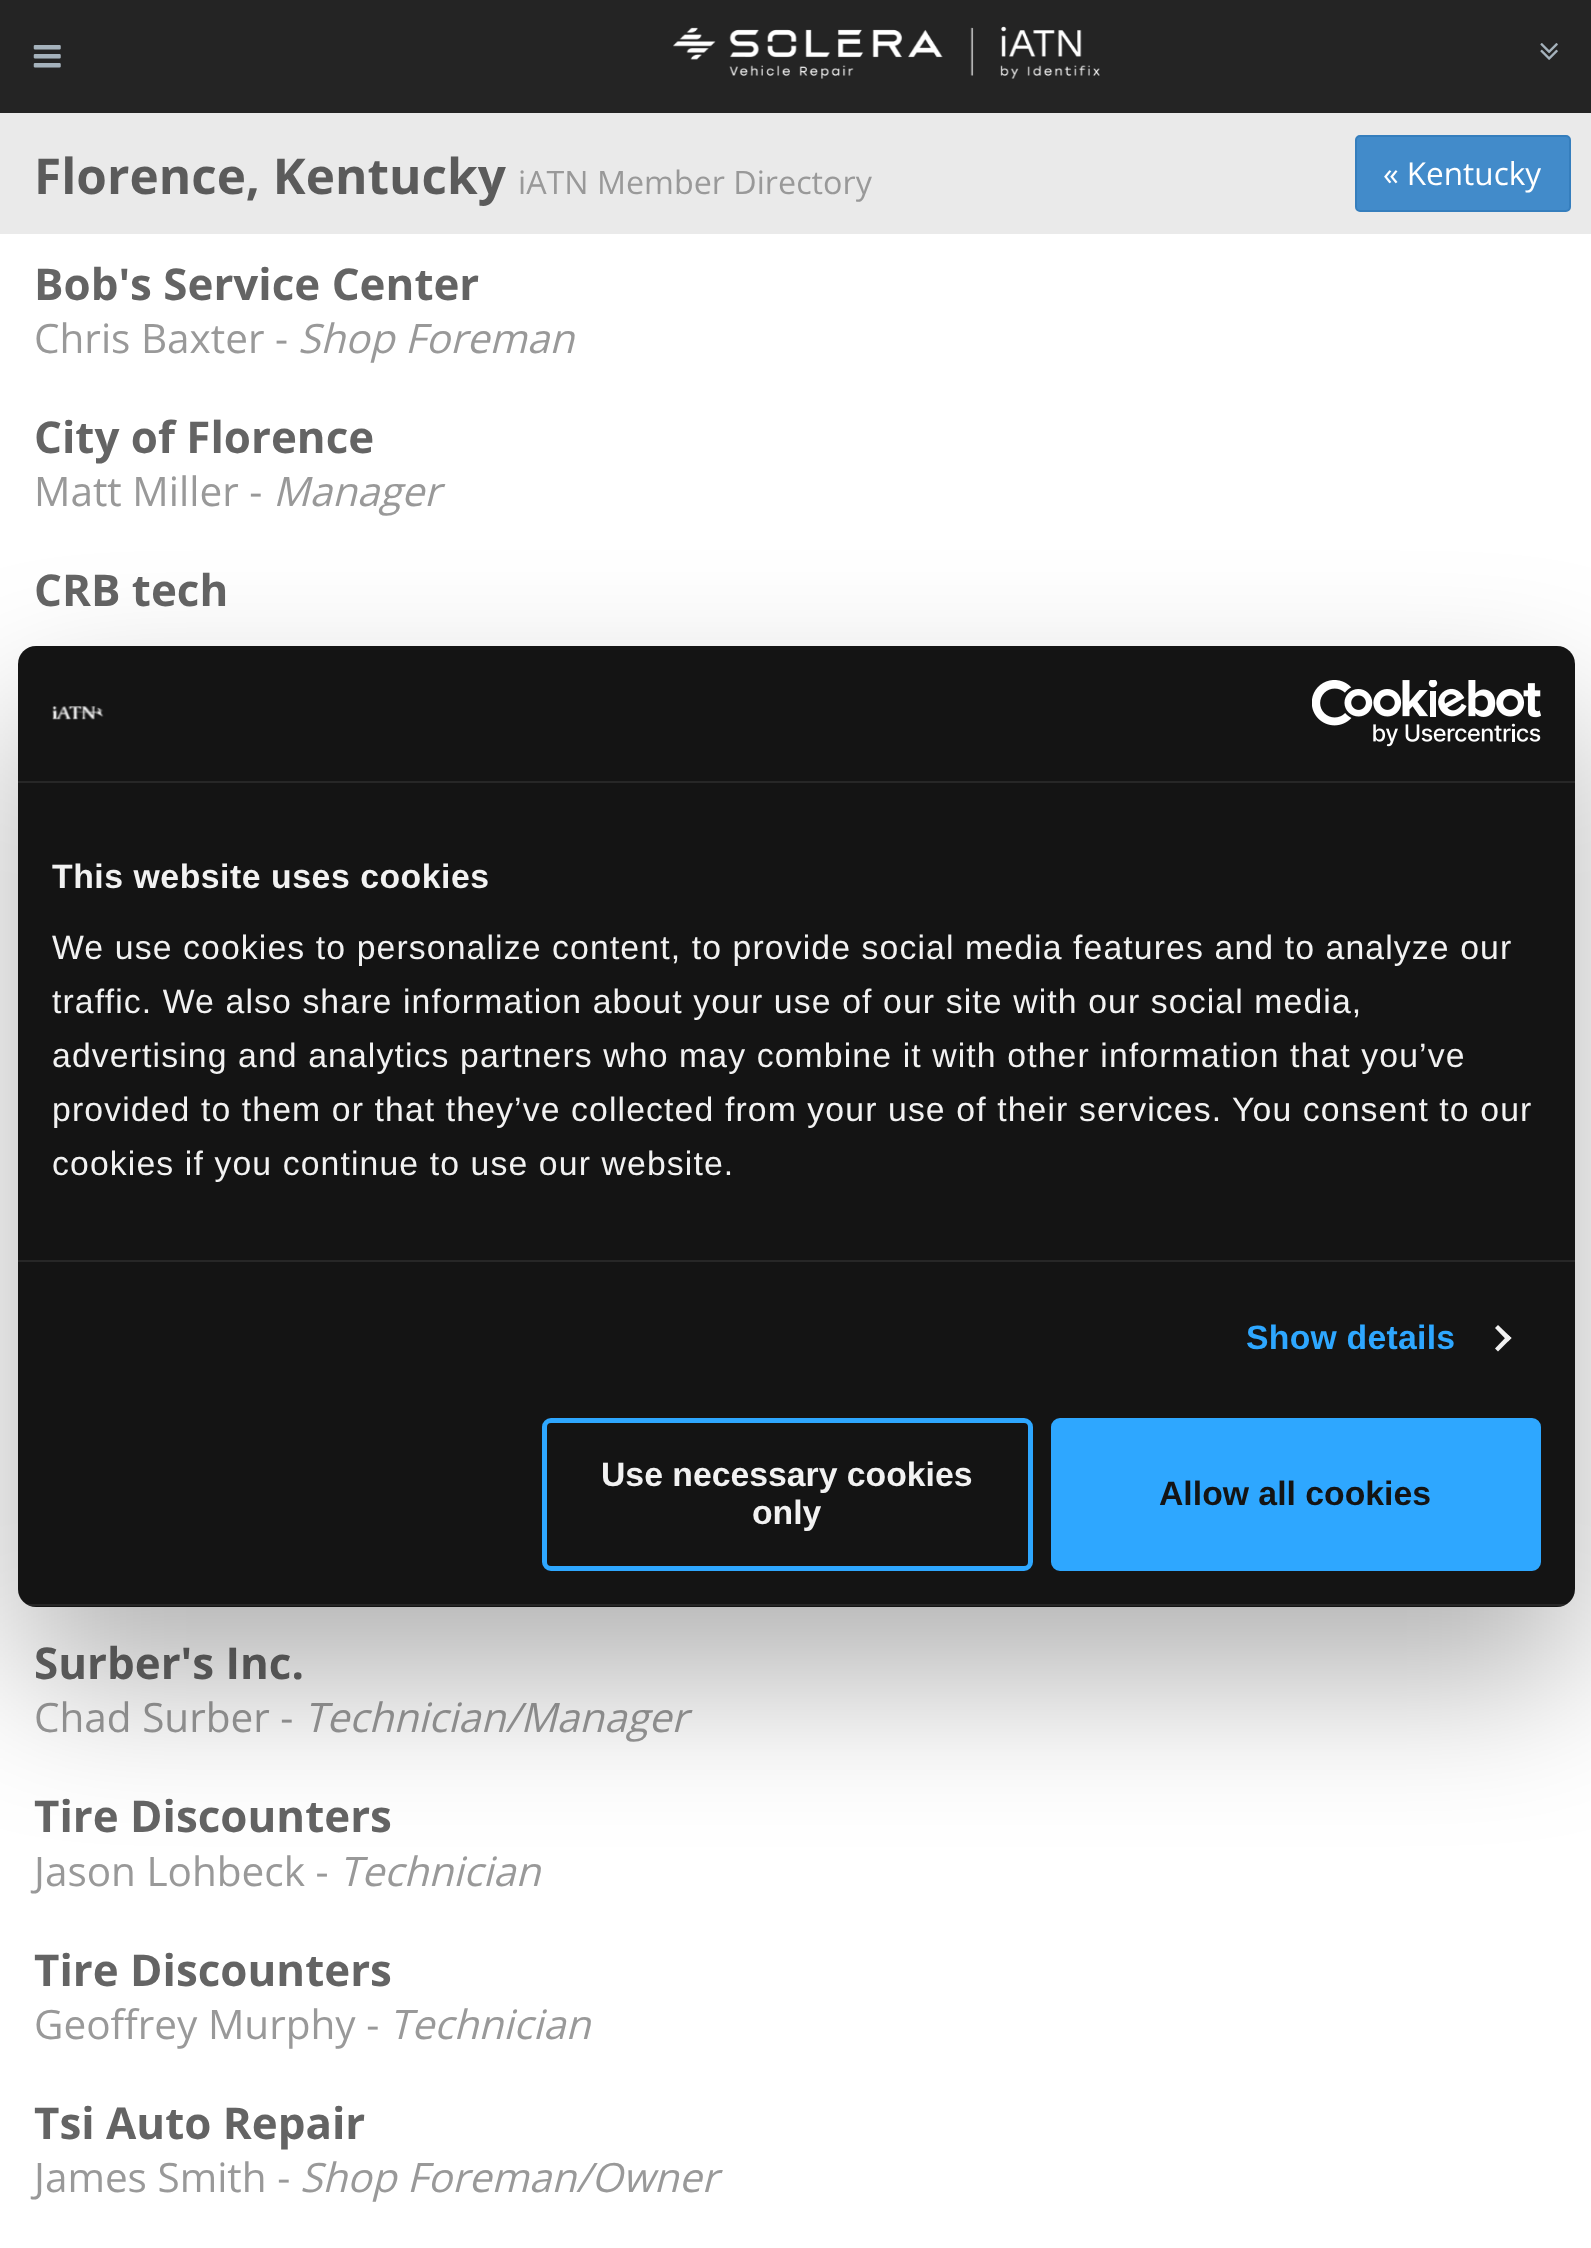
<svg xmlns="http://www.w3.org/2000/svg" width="1591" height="2248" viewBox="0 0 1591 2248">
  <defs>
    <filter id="blur1" x="-50%" y="-200%" width="200%" height="500%"><feGaussianBlur stdDeviation="76.5"/></filter>
    <clipPath id="clip1"><rect x="18" y="646" width="1557" height="961" rx="18"/></clipPath>
  </defs>
  <rect width="100%" height="100%" fill="#eaeaea"/>
  <rect x="0" y="0" width="1591" height="113" fill="#242424"/>
  <image x="33" y="45" width="28" height="23" href="img1.png"/>
  <image x="673" y="26" width="427" height="53" href="img2.png"/>
  <image x="1540" y="43" width="18" height="17" href="img3.png"/>
  <text x="34" y="194" font-family="Open Sans" font-size="49.5" font-weight="bold" fill="#5b5b5b">Florence, Kentucky</text>
  <text x="518" y="194" font-family="Open Sans" font-size="32.25" fill="#999999">iATN Member Directory</text>
  <rect x="1356" y="136" width="214" height="75" rx="4" fill="#428bca" stroke="#357ebd" stroke-width="2"/>
  <text x="1383" y="185" font-family="Open Sans" font-size="31.5" fill="#ffffff">« Kentucky</text>
  <rect x="0" y="234" width="1591" height="2014" fill="#ffffff"/>
  <text x="34" y="300" font-family="Open Sans" font-size="43.9" font-weight="bold" fill="#646464">Bob's Service Center</text>
  <text x="34" y="353" font-family="Open Sans" font-size="40.5" fill="#999999">Chris Baxter -</text>
  <text x="298" y="353" font-family="Open Sans" font-size="40.5" font-style="italic" fill="#999999">Shop Foreman</text>
  <text x="34" y="453" font-family="Open Sans" font-size="43.9" font-weight="bold" fill="#646464">City of Florence</text>
  <text x="34" y="506" font-family="Open Sans" font-size="40.5" fill="#999999">Matt Miller -</text>
  <text x="273" y="506" font-family="Open Sans" font-size="40.5" font-style="italic" fill="#999999">Manager</text>
  <text x="34" y="606" font-family="Open Sans" font-size="43.9" font-weight="bold" fill="#646464">CRB tech</text>
  <text x="34" y="1679" font-family="Open Sans" font-size="43.9" font-weight="bold" fill="#646464">Surber's Inc.</text>
  <text x="34" y="1732" font-family="Open Sans" font-size="40.5" fill="#999999">Chad Surber -</text>
  <text x="304" y="1732" font-family="Open Sans" font-size="40.5" font-style="italic" fill="#999999">Technician/Manager</text>
  <text x="34" y="1832" font-family="Open Sans" font-size="43.9" font-weight="bold" fill="#646464">Tire Discounters</text>
  <text x="34" y="1886" font-family="Open Sans" font-size="40.5" fill="#999999">Jason Lohbeck -</text>
  <text x="339" y="1886" font-family="Open Sans" font-size="40.5" font-style="italic" fill="#999999">Technician</text>
  <text x="34" y="1986" font-family="Open Sans" font-size="43.9" font-weight="bold" fill="#646464">Tire Discounters</text>
  <text x="34" y="2039" font-family="Open Sans" font-size="40.5" fill="#999999">Geoffrey Murphy -</text>
  <text x="389" y="2039" font-family="Open Sans" font-size="40.5" font-style="italic" fill="#999999">Technician</text>
  <text x="34" y="2139" font-family="Open Sans" font-size="43.9" font-weight="bold" fill="#646464">Tsi Auto Repair</text>
  <text x="34" y="2192" font-family="Open Sans" font-size="40.5" fill="#999999">James Smith -</text>
  <text x="300" y="2192" font-family="Open Sans" font-size="40.5" font-style="italic" fill="#999999">Shop Foreman/Owner</text>
  <rect x="18" y="718" width="1557" height="961" rx="18" fill="#000000" fill-opacity="0.3" filter="url(#blur1)"/>
  <rect x="18" y="646" width="1557" height="961" rx="18" fill="#141414"/>
  <rect x="18" y="781" width="1557" height="2" fill="#272727"/>
  <image x="52" y="706" width="52" height="14" href="img4.png"/>
  <image x="1312" y="680" width="229" height="67" href="img5.png"/>
  <rect x="18" y="1260" width="1557" height="2" fill="#272727"/>
  <text x="52" y="888" font-family="Liberation Sans" font-size="33.75" font-weight="bold" letter-spacing="0.55" fill="#f2f2f2">This website uses cookies</text>
  <text x="52" y="959" font-family="Liberation Sans" font-size="33.75" letter-spacing="1.12" fill="#f2f2f2">We use cookies to personalize content, to provide social media features and to analyze our</text>
  <text x="52" y="1013" font-family="Liberation Sans" font-size="33.75" letter-spacing="1.12" fill="#f2f2f2">traffic. We also share information about your use of our site with our social media,</text>
  <text x="52" y="1067" font-family="Liberation Sans" font-size="33.75" letter-spacing="1.12" fill="#f2f2f2">advertising and analytics partners who may combine it with other information that you’ve</text>
  <text x="52" y="1121" font-family="Liberation Sans" font-size="33.75" letter-spacing="1.12" fill="#f2f2f2">provided to them or that they’ve collected from your use of their services. You consent to our</text>
  <text x="52" y="1175" font-family="Liberation Sans" font-size="33.75" letter-spacing="1.12" fill="#f2f2f2">cookies if you continue to use our website.</text>
  <text x="1246" y="1349" font-family="Liberation Sans" font-size="33.75" font-weight="bold" letter-spacing="0.25" fill="#2ea7ff">Show details</text>
  <path d="M1498 1325L1511.5 1338L1508 1341.5L1495 1328Z" fill="#f2f2f2"/>
  <path d="M1508 1335L1511.5 1338L1498 1351.5L1495 1348.5Z" fill="#f2f2f2"/>
  <g clip-path="url(#clip1)">
    <rect x="18" y="1604" width="1557" height="2" fill="#ffffff" fill-opacity="0.08"/>
  </g>
  <rect x="544.5" y="1420.5" width="486" height="148" rx="6.5" fill="none" stroke="#2ea7ff" stroke-width="5"/>
  <text x="601" y="1486" font-family="Liberation Sans" font-size="33.75" font-weight="bold" fill="#f2f2f2">Use necessary cookies</text>
  <text x="752" y="1524" font-family="Liberation Sans" font-size="33.75" font-weight="bold" fill="#f2f2f2">only</text>
  <rect x="1053.5" y="1420.5" width="485" height="148" rx="6.5" fill="#2ea7ff" stroke="#2ea7ff" stroke-width="5"/>
  <text x="1159" y="1505" font-family="Liberation Sans" font-size="33.75" font-weight="bold" fill="#141414">Allow all cookies</text>
</svg>
